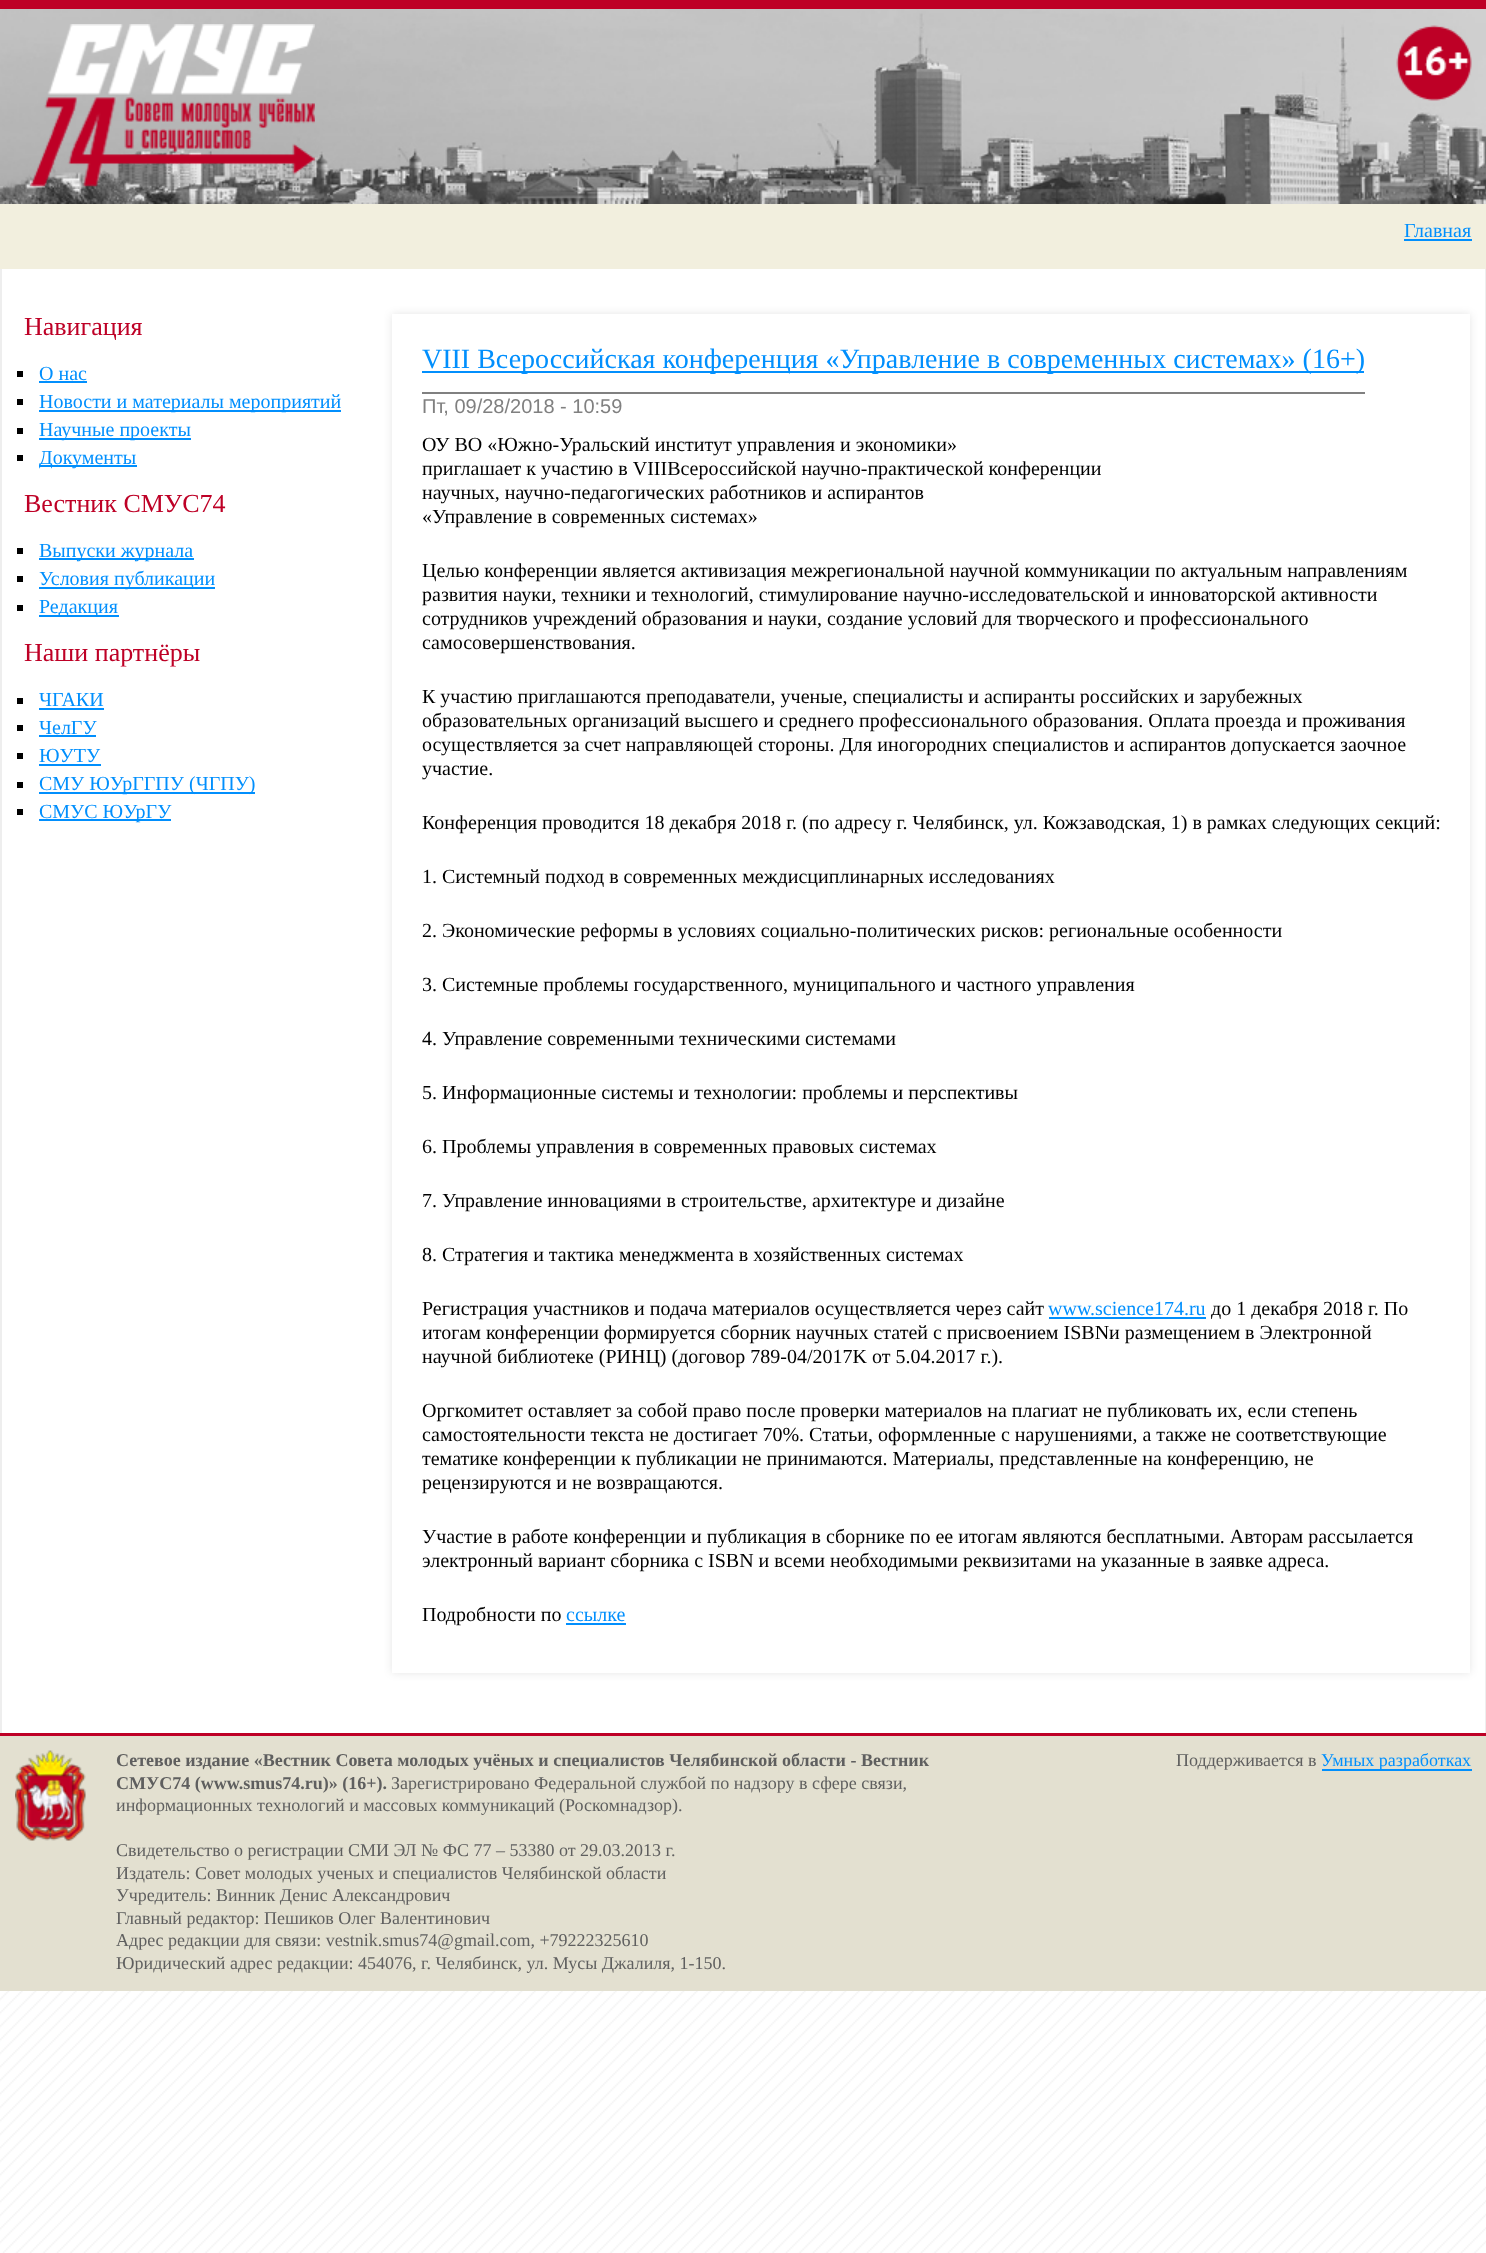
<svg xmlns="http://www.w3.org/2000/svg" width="1486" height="2253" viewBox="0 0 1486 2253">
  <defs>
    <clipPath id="clip1"><path d="M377 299H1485V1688H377ZM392 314H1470V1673H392Z" clip-rule="evenodd"/></clipPath>
    <filter id="blur1" x="-50%" y="-200%" width="200%" height="500%"><feGaussianBlur stdDeviation="4.5"/></filter>
  </defs>
  <rect width="100%" height="100%" fill="#ffffff"/>
  <image x="0" y="1991" width="1486" height="262" href="img1.png"/>
  <image x="0" y="9" width="1486" height="195" href="img2.png"/>
  <rect x="0" y="0" width="1486" height="9" fill="#be0026"/>
  <image x="30" y="24" width="285" height="163" href="img3.png"/>
  <image x="1396" y="25" width="76" height="76" href="img4.png"/>
  <rect x="0" y="204" width="1486" height="65" fill="#f2efde"/>
  <text x="1404" y="237" font-family="Liberation Serif" font-size="20" fill="#018ffd">Главная</text>
  <rect x="1404" y="239" width="68" height="2" fill="#018ffd"/>
  <rect x="1485" y="269" width="1" height="1464" fill="#eeeeee"/>
  <rect x="0" y="269" width="2" height="1464" fill="#eeeeee"/>
  <text x="24" y="335" font-family="Liberation Serif" font-size="26" fill="#be0026">Навигация</text>
  <rect x="17" y="371" width="6" height="6" fill="#000000"/>
  <text x="39" y="380" font-family="Liberation Serif" font-size="20" fill="#018ffd">О нас</text>
  <rect x="39" y="381" width="48" height="2" fill="#018ffd"/>
  <rect x="17" y="399" width="6" height="6" fill="#000000"/>
  <rect x="39" y="410" width="302" height="2" fill="#018ffd"/>
  <text x="39" y="408" font-family="Liberation Serif" font-size="20" fill="#018ffd">Новости и материалы мероприятий</text>
  <rect x="17" y="428" width="6" height="6" fill="#000000"/>
  <rect x="39" y="438" width="152" height="2" fill="#018ffd"/>
  <text x="39" y="436" font-family="Liberation Serif" font-size="20" fill="#018ffd">Научные проекты</text>
  <rect x="17" y="455" width="6" height="6" fill="#000000"/>
  <rect x="39" y="465" width="98" height="2" fill="#018ffd"/>
  <text x="39" y="464" font-family="Liberation Serif" font-size="20" fill="#018ffd">Документы</text>
  <text x="24" y="512" font-family="Liberation Serif" font-size="26" fill="#be0026">Вестник СМУС74</text>
  <rect x="17" y="548" width="6" height="6" fill="#000000"/>
  <rect x="39" y="558" width="155" height="2" fill="#018ffd"/>
  <text x="39" y="557" font-family="Liberation Serif" font-size="20" fill="#018ffd">Выпуски журнала</text>
  <rect x="17" y="576" width="6" height="6" fill="#000000"/>
  <rect x="39" y="587" width="176" height="2" fill="#018ffd"/>
  <text x="39" y="585" font-family="Liberation Serif" font-size="20" fill="#018ffd">Условия публикации</text>
  <rect x="17" y="605" width="6" height="6" fill="#000000"/>
  <rect x="39" y="615" width="80" height="2" fill="#018ffd"/>
  <text x="39" y="613" font-family="Liberation Serif" font-size="20" fill="#018ffd">Редакция</text>
  <text x="24" y="661" font-family="Liberation Serif" font-size="26" fill="#be0026">Наши партнёры</text>
  <rect x="17" y="698" width="6" height="6" fill="#000000"/>
  <text x="39" y="706" font-family="Liberation Serif" font-size="20" fill="#018ffd">ЧГАКИ</text>
  <rect x="39" y="708" width="65" height="2" fill="#018ffd"/>
  <rect x="17" y="725" width="6" height="6" fill="#000000"/>
  <text x="39" y="734" font-family="Liberation Serif" font-size="20" fill="#018ffd">ЧелГУ</text>
  <rect x="39" y="735" width="57" height="2" fill="#018ffd"/>
  <rect x="17" y="753" width="6" height="6" fill="#000000"/>
  <text x="39" y="762" font-family="Liberation Serif" font-size="20" fill="#018ffd">ЮУТУ</text>
  <rect x="39" y="764" width="62" height="2" fill="#018ffd"/>
  <rect x="17" y="782" width="6" height="6" fill="#000000"/>
  <rect x="39" y="792" width="216" height="2" fill="#018ffd"/>
  <text x="39" y="790" font-family="Liberation Serif" font-size="20" fill="#018ffd">СМУ ЮУрГГПУ (ЧГПУ)</text>
  <rect x="17" y="809" width="6" height="6" fill="#000000"/>
  <rect x="39" y="819" width="132" height="2" fill="#018ffd"/>
  <text x="39" y="818" font-family="Liberation Serif" font-size="20" fill="#018ffd">СМУС ЮУрГУ</text>
  <g clip-path="url(#clip1)">
    <rect x="392" y="314" width="1078" height="1359" fill="#000000" fill-opacity="0.1" filter="url(#blur1)"/>
  </g>
  <rect x="422" y="371" width="942" height="2" fill="#018ffd"/>
  <text x="422" y="368" font-family="Liberation Serif" font-size="28" fill="#018ffd">VIII Всероссийская конференция «Управление в современных системах» (16+)</text>
  <rect x="422" y="392" width="943" height="2" fill="#808080"/>
  <text x="422" y="413" font-family="Liberation Sans" font-size="20" fill="#808080">Пт, 09/28/2018 - 10:59</text>
  <text x="422" y="451" font-family="Liberation Serif" font-size="20" fill="#000000">ОУ ВО «Южно-Уральский институт управления и экономики»</text>
  <text x="422" y="475" font-family="Liberation Serif" font-size="20" fill="#000000">приглашает к участию в VIIIВсероссийской научно-практической конференции</text>
  <text x="422" y="499" font-family="Liberation Serif" font-size="20" fill="#000000">научных, научно-педагогических работников и аспирантов</text>
  <text x="422" y="523" font-family="Liberation Serif" font-size="20" fill="#000000">«Управление в современных системах»</text>
  <text x="422" y="577" font-family="Liberation Serif" font-size="20" fill="#000000">Целью конференции является активизация межрегиональной научной коммуникации по актуальным направлениям</text>
  <text x="422" y="601" font-family="Liberation Serif" font-size="20" fill="#000000">развития науки, техники и технологий, стимулирование научно-исследовательской и инноваторской активности</text>
  <text x="422" y="625" font-family="Liberation Serif" font-size="20" fill="#000000">сотрудников учреждений образования и науки, создание условий для творческого и профессионального</text>
  <text x="422" y="649" font-family="Liberation Serif" font-size="20" fill="#000000">самосовершенствования.</text>
  <text x="422" y="703" font-family="Liberation Serif" font-size="20" fill="#000000">К участию приглашаются преподаватели, ученые, специалисты и аспиранты российских и зарубежных</text>
  <text x="422" y="727" font-family="Liberation Serif" font-size="20" fill="#000000">образовательных организаций высшего и среднего профессионального образования. Оплата проезда и проживания</text>
  <text x="422" y="751" font-family="Liberation Serif" font-size="20" fill="#000000">осуществляется за счет направляющей стороны. Для иногородних специалистов и аспирантов допускается заочное</text>
  <text x="422" y="775" font-family="Liberation Serif" font-size="20" fill="#000000">участие.</text>
  <text x="422" y="829" font-family="Liberation Serif" font-size="20" fill="#000000">Конференция проводится 18 декабря 2018 г. (по адресу г. Челябинск, ул. Кожзаводская, 1) в рамках следующих секций:</text>
  <text x="422" y="883" font-family="Liberation Serif" font-size="20" fill="#000000">1. Системный подход в современных междисциплинарных исследованиях</text>
  <text x="422" y="937" font-family="Liberation Serif" font-size="20" fill="#000000">2. Экономические реформы в условиях социально-политических рисков: региональные особенности</text>
  <text x="422" y="991" font-family="Liberation Serif" font-size="20" fill="#000000">3. Системные проблемы государственного, муниципального и частного управления</text>
  <text x="422" y="1045" font-family="Liberation Serif" font-size="20" fill="#000000">4. Управление современными техническими системами</text>
  <text x="422" y="1099" font-family="Liberation Serif" font-size="20" fill="#000000">5. Информационные системы и технологии: проблемы и перспективы</text>
  <text x="422" y="1153" font-family="Liberation Serif" font-size="20" fill="#000000">6. Проблемы управления в современных правовых системах</text>
  <text x="422" y="1207" font-family="Liberation Serif" font-size="20" fill="#000000">7. Управление инновациями в строительстве, архитектуре и дизайне</text>
  <text x="422" y="1261" font-family="Liberation Serif" font-size="20" fill="#000000">8. Стратегия и тактика менеджмента в хозяйственных системах</text>
  <text x="422" y="1315" font-family="Liberation Serif" font-size="20" fill="#000000">Регистрация участников и подача материалов осуществляется через сайт</text>
  <text x="1048" y="1315" font-family="Liberation Serif" font-size="20" fill="#018ffd">www.science174.ru</text>
  <rect x="1049" y="1317" width="157" height="2" fill="#018ffd"/>
  <text x="1211" y="1315" font-family="Liberation Serif" font-size="20" fill="#000000">до 1 декабря 2018 г. По</text>
  <text x="422" y="1339" font-family="Liberation Serif" font-size="20" fill="#000000">итогам конференции формируется сборник научных статей с присвоением ISBNи размещением в Электронной</text>
  <text x="422" y="1363" font-family="Liberation Serif" font-size="20" fill="#000000">научной библиотеке (РИНЦ) (договор 789-04/2017K от 5.04.2017 г.).</text>
  <text x="422" y="1417" font-family="Liberation Serif" font-size="20" fill="#000000">Оргкомитет оставляет за собой право после проверки материалов на плагиат не публиковать их, если степень</text>
  <text x="422" y="1441" font-family="Liberation Serif" font-size="20" fill="#000000">самостоятельности текста не достигает 70%. Статьи, оформленные с нарушениями, а также не соответствующие</text>
  <text x="422" y="1465" font-family="Liberation Serif" font-size="20" fill="#000000">тематике конференции к публикации не принимаются. Материалы, представленные на конференцию, не</text>
  <text x="422" y="1489" font-family="Liberation Serif" font-size="20" fill="#000000">рецензируются и не возвращаются.</text>
  <text x="422" y="1543" font-family="Liberation Serif" font-size="20" fill="#000000">Участие в работе конференции и публикация в сборнике по ее итогам являются бесплатными. Авторам рассылается</text>
  <text x="422" y="1567" font-family="Liberation Serif" font-size="20" fill="#000000">электронный вариант сборника с ISBN и всеми необходимыми реквизитами на указанные в заявке адреса.</text>
  <text x="422" y="1621" font-family="Liberation Serif" font-size="20" fill="#000000">Подробности по</text>
  <text x="566" y="1621" font-family="Liberation Serif" font-size="20" fill="#018ffd">ссылке</text>
  <rect x="566" y="1623" width="60" height="2" fill="#018ffd"/>
  <rect x="0" y="1736" width="1486" height="255" fill="#e3e0d0"/>
  <rect x="0" y="1733" width="1486" height="3" fill="#be0026"/>
  <image x="15" y="1750" width="71" height="91" href="img5.png"/>
  <text x="116" y="1766" font-family="Liberation Serif" font-size="18" font-weight="bold" fill="#5f5f5f">Сетевое издание «Вестник Совета молодых учёных и специалистов Челябинской области - Вестник</text>
  <text x="116" y="1789" font-family="Liberation Serif" font-size="18" font-weight="bold" fill="#5f5f5f">СМУС74 (www.smus74.ru)» (16+).</text>
  <text x="391" y="1789" font-family="Liberation Serif" font-size="18" fill="#5f5f5f">Зарегистрировано Федеральной службой по надзору в сфере связи,</text>
  <text x="116" y="1811" font-family="Liberation Serif" font-size="18" fill="#5f5f5f">информационных технологий и массовых коммуникаций (Роскомнадзор).</text>
  <text x="116" y="1856" font-family="Liberation Serif" font-size="18" fill="#5f5f5f">Свидетельство о регистрации СМИ ЭЛ № ФС 77 – 53380 от 29.03.2013 г.</text>
  <text x="116" y="1879" font-family="Liberation Serif" font-size="18" fill="#5f5f5f">Издатель: Совет молодых ученых и специалистов Челябинской области</text>
  <text x="116" y="1901" font-family="Liberation Serif" font-size="18" fill="#5f5f5f">Учредитель: Винник Денис Александрович</text>
  <text x="116" y="1924" font-family="Liberation Serif" font-size="18" fill="#5f5f5f">Главный редактор: Пешиков Олег Валентинович</text>
  <text x="116" y="1946" font-family="Liberation Serif" font-size="18" fill="#5f5f5f">Адрес редакции для связи: vestnik.smus74@gmail.com, +79222325610</text>
  <text x="116" y="1969" font-family="Liberation Serif" font-size="18" fill="#5f5f5f">Юридический адрес редакции: 454076, г. Челябинск, ул. Мусы Джалиля, 1-150.</text>
  <text x="1176" y="1766" font-family="Liberation Serif" font-size="18" fill="#5f5f5f">Поддерживается в</text>
  <rect x="1322" y="1769" width="150" height="2" fill="#018ffd"/>
  <text x="1321" y="1766" font-family="Liberation Serif" font-size="18" fill="#018ffd">Умных разработках</text>
</svg>
